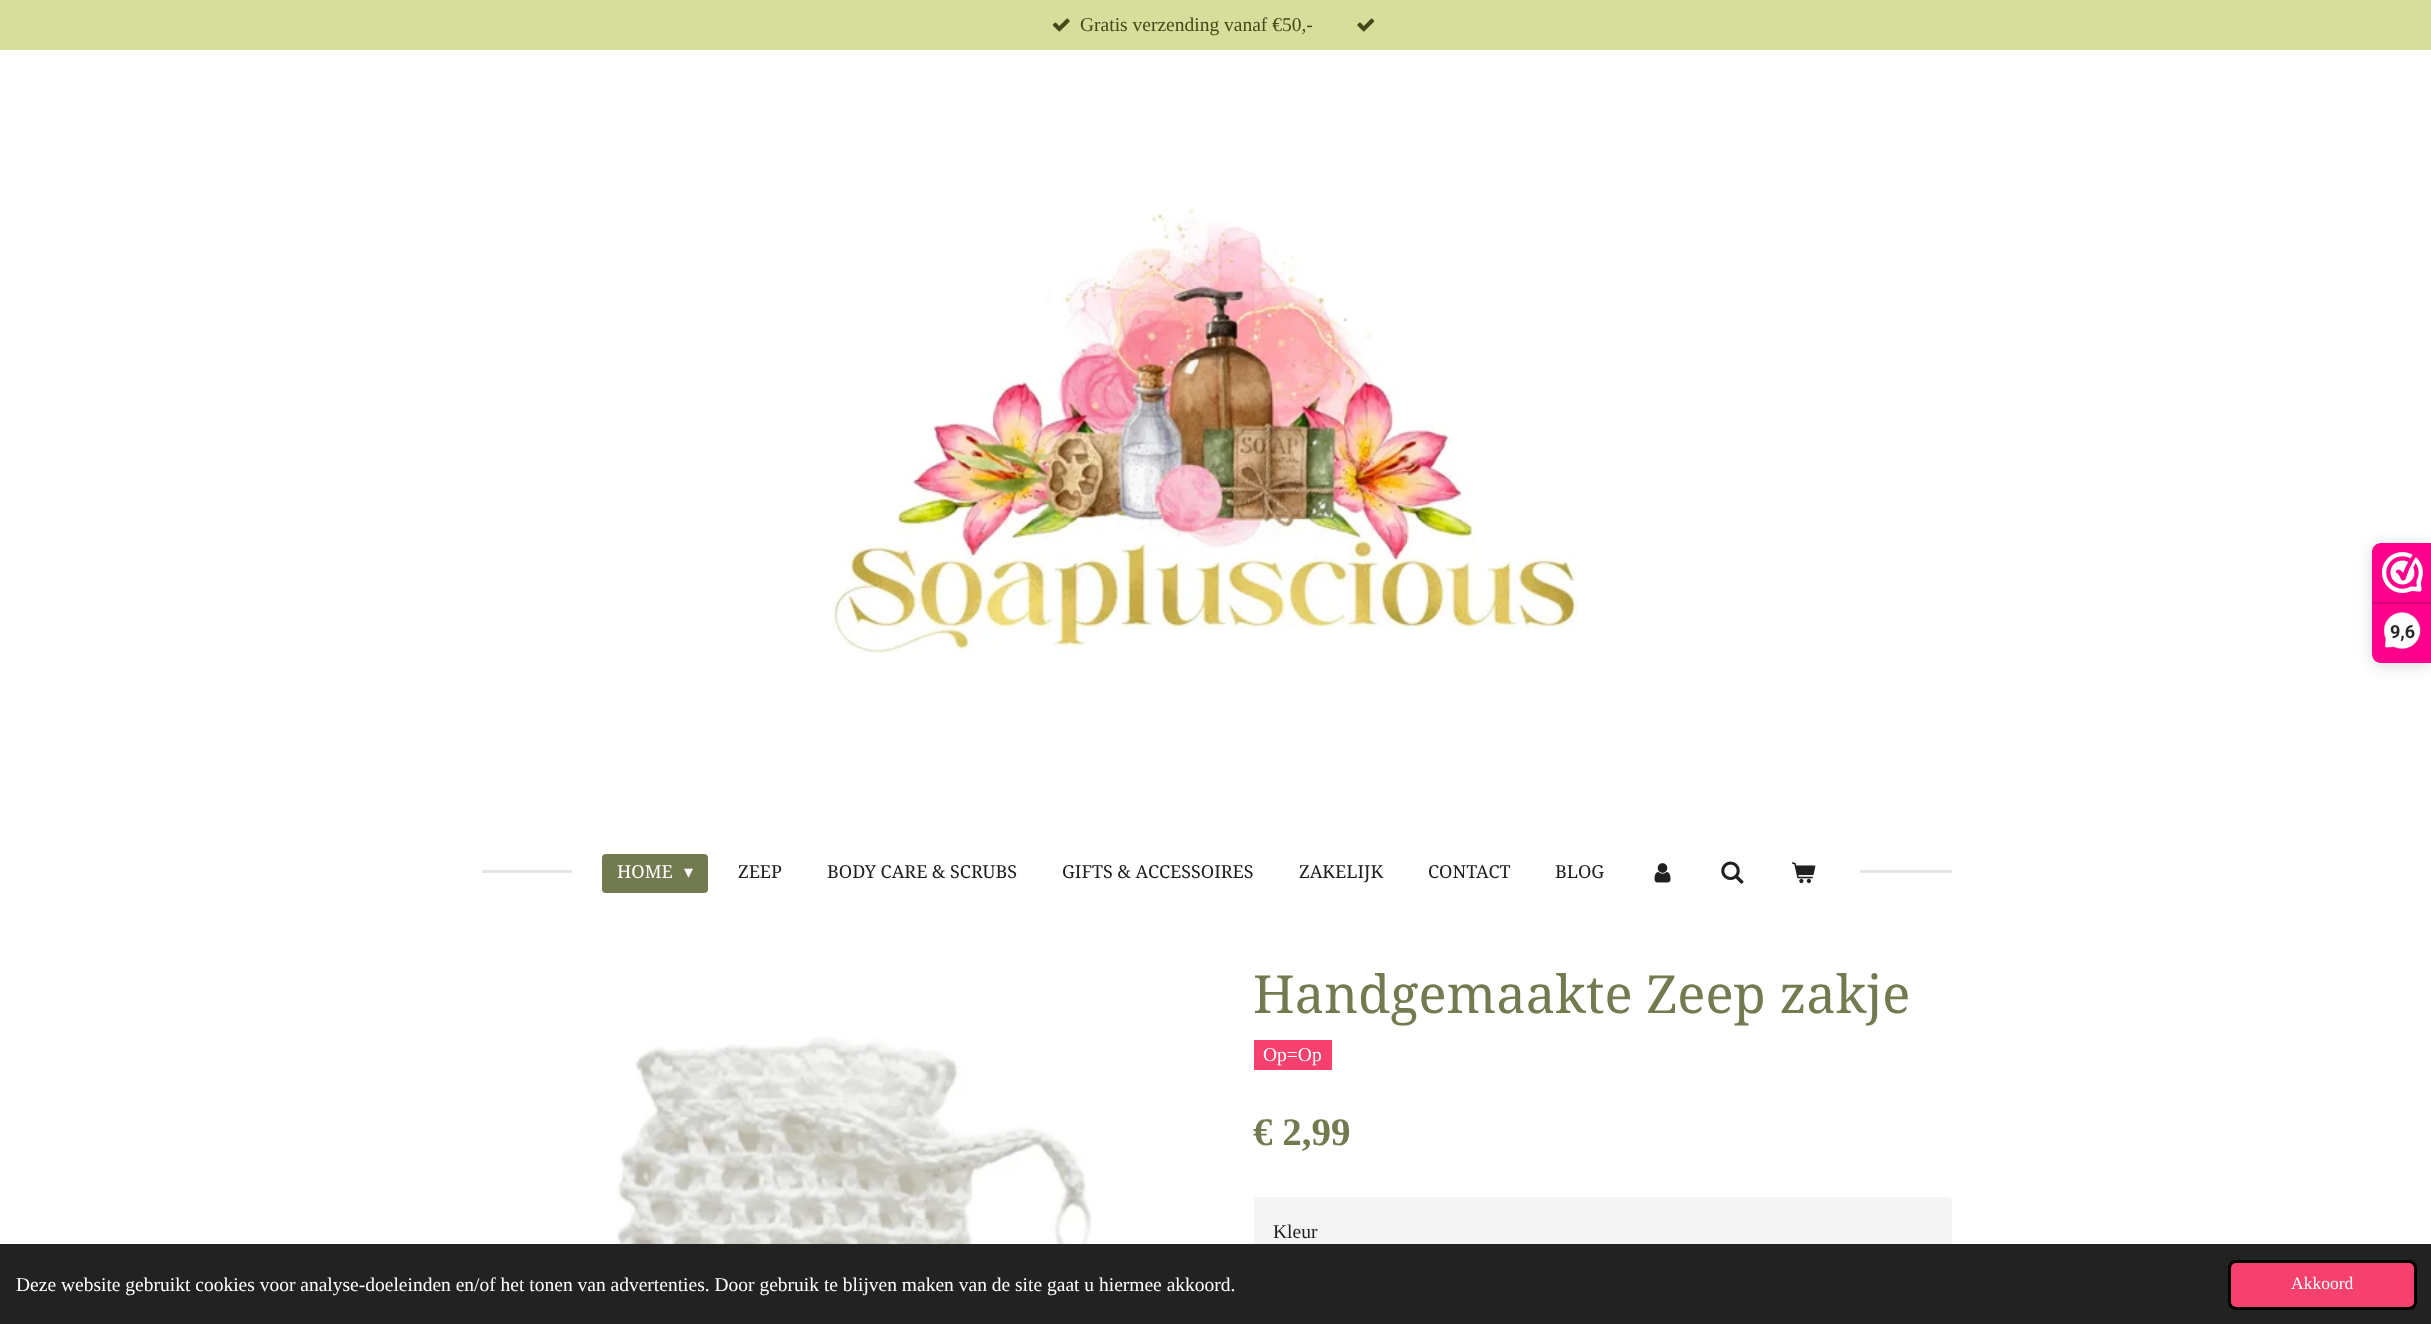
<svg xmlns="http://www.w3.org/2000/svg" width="2431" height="1324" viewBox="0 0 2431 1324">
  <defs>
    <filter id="blur1" x="-50%" y="-200%" width="200%" height="500%"><feGaussianBlur stdDeviation="7.5"/></filter>
  </defs>
  <rect width="100%" height="100%" fill="#ffffff"/>
  <rect x="0" y="0" width="2431" height="50" fill="#d7de9b"/>
  <image x="1052" y="18" width="18" height="14" href="img1.png"/>
  <text x="1080" y="31" font-family="Liberation Serif" font-size="19.5" fill="#434918">Gratis verzending vanaf €50,-</text>
  <image x="1357" y="18" width="18" height="14" href="img2.png"/>
  <image x="833" y="208" width="745" height="445" href="img3.png"/>
  <rect x="482" y="870" width="90" height="3" fill="#e6e6e6"/>
  <rect x="602" y="854" width="106" height="39" rx="4" fill="#727b4f"/>
  <text x="617" y="878" font-family="Droid Serif" font-size="18" fill="#ffffff">HOME</text>
  <text x="684" y="878" font-family="DejaVu Sans" font-size="18" fill="#ffffff">▾</text>
  <text x="738" y="878" font-family="Droid Serif" font-size="18" fill="#202020">ZEEP</text>
  <text x="827" y="878" font-family="Droid Serif" font-size="18" fill="#202020">BODY CARE &amp; SCRUBS</text>
  <text x="1062" y="878" font-family="Droid Serif" font-size="18" fill="#202020">GIFTS &amp; ACCESSOIRES</text>
  <text x="1299" y="878" font-family="Droid Serif" font-size="18" fill="#202020">ZAKELIJK</text>
  <text x="1428" y="878" font-family="Droid Serif" font-size="18" fill="#202020">CONTACT</text>
  <text x="1555" y="878" font-family="Droid Serif" font-size="18" fill="#202020">BLOG</text>
  <image x="1654" y="863" width="17" height="20" href="img4.png"/>
  <image x="1721" y="861" width="23" height="23" href="img5.png"/>
  <image x="1791" y="862" width="25" height="22" href="img6.png"/>
  <rect x="1860" y="870" width="92" height="3" fill="#e6e6e6"/>
  <text x="1253" y="1013" font-family="Droid Serif" font-size="52.5" fill="#727b4f">Handgemaakte Zeep zakje</text>
  <rect x="1254" y="1040" width="78" height="30" fill="#f6406d"/>
  <text x="1263" y="1061" font-family="Liberation Serif" font-size="19.5" fill="#ffffff">Op=Op</text>
  <image x="617" y="1037" width="475" height="207" href="img7.png"/>
  <text x="1253" y="1145" font-family="Liberation Serif" font-size="39" font-weight="bold" fill="#727b4f">€ 2,99</text>
  <rect x="1254" y="1197" width="698" height="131" rx="4" fill="#f4f4f4"/>
  <text x="1273" y="1238" font-family="Liberation Serif" font-size="19.5" fill="#202020">Kleur</text>
  <rect x="2372" y="546" width="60" height="120" rx="9" fill="#000000" fill-opacity="0.15" filter="url(#blur1)"/>
  <path d="M2381 543H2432V663H2381C2376 663 2372 659 2372 654V552C2372 547 2376 543 2381 543Z" fill="#fe008c"/>
  <image x="2382" y="552" width="41" height="41" href="img8.png"/>
  <rect x="2373" y="602" width="58" height="2" fill="#d80077"/>
  <image x="2383" y="612" width="38" height="38" href="img9.png"/>
  <text x="2390" y="638" font-family="Roboto" font-size="18" font-weight="bold" fill="#272626">9,6</text>
  <rect x="0" y="1244" width="2431" height="80" fill="#222222"/>
  <text x="16" y="1291" font-family="Liberation Serif" font-size="19.5" fill="#ffffff">Deze website gebruikt cookies voor analyse-doeleinden en/of het tonen van advertenties. Door gebruik te blijven maken van de site gaat u hiermee akkoord.</text>
  <rect x="2229.5" y="1261.5" width="186" height="47" rx="6.5" fill="#f6406d" stroke="#000000" stroke-width="3"/>
  <text x="2291" y="1289" font-family="Liberation Serif" font-size="17.5" fill="#ffffff">Akkoord</text>
</svg>
